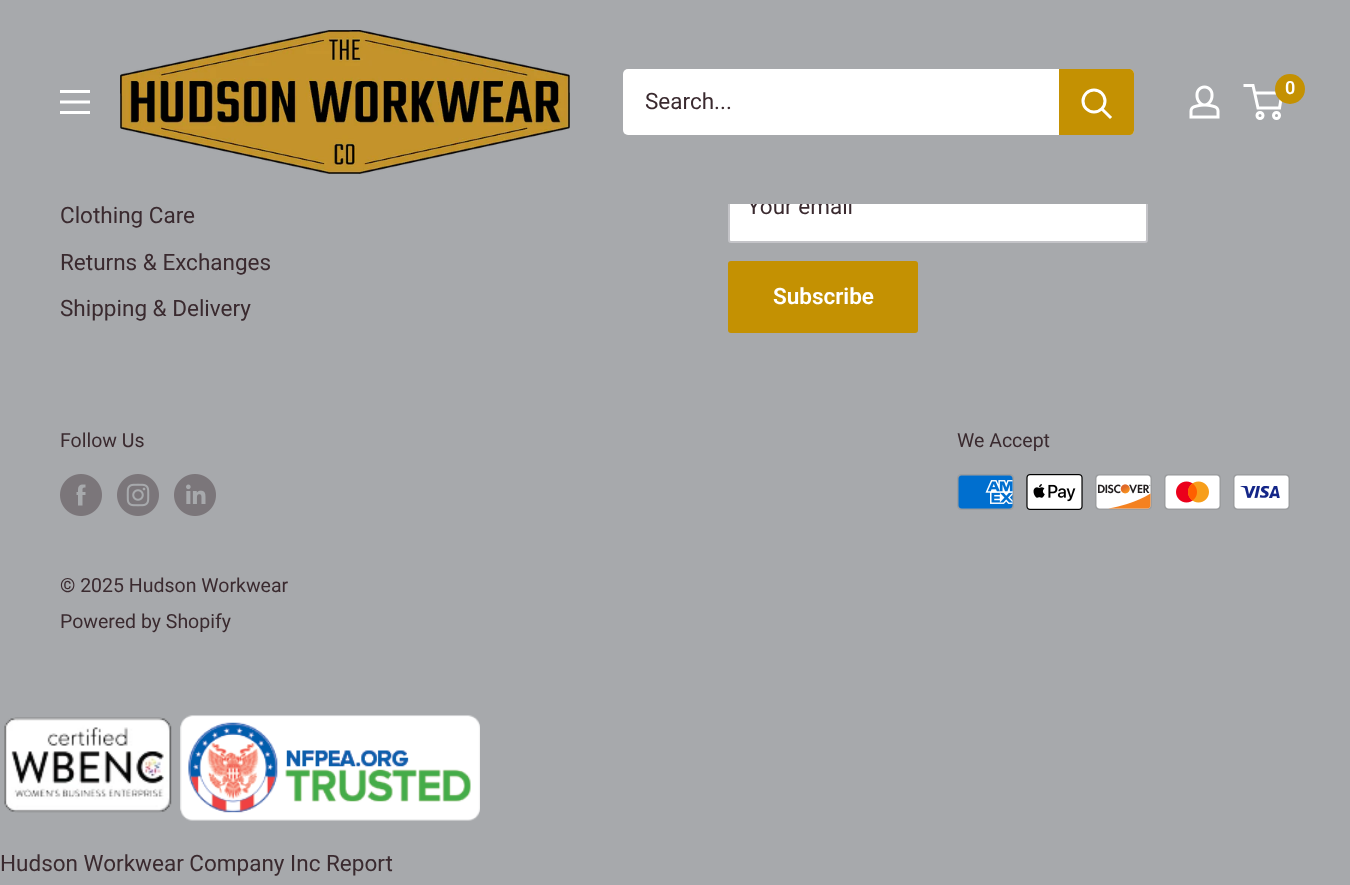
<svg xmlns="http://www.w3.org/2000/svg" width="1350" height="885" viewBox="0 0 1350 885">
  <rect width="100%" height="100%" fill="#a7a9ac"/>
  <rect x="729" y="172" width="418" height="70" rx="2" fill="#ffffff" stroke="#c4c4c8" stroke-width="2"/>
  <text x="747" y="214" font-family="Roboto" font-size="22.5" fill="#3a2a2f">Your email</text>
  <rect x="728" y="171" width="420" height="33" fill="#a7a9ac"/>
  <image x="120" y="30" width="450" height="144" href="img1.png"/>
  <image x="1189" y="85" width="31" height="34" href="img2.png"/>
  <circle cx="1260" cy="115.5" r="3" fill="none" stroke="#ffffff" stroke-width="3"/>
  <circle cx="1276.5" cy="115.5" r="3" fill="none" stroke="#ffffff" stroke-width="3"/>
  <path d="M1254.5 93H1282L1279.5 108H1258L1253 85.5H1243.5" fill="none" stroke="#ffffff" stroke-width="3"/>
  <circle cx="1290" cy="89" r="15" fill="#c49102"/>
  <text x="1285" y="94" font-family="Roboto" font-size="18" font-weight="600" fill="#ffffff">0</text>
  <image x="60" y="90" width="30" height="24" href="img3.png"/>
  <rect x="623" y="69" width="511" height="66" rx="5" fill="#ffffff"/>
  <text x="645" y="109" font-family="Roboto" font-size="22.5" fill="#3a2a2f">Search...</text>
  <path d="M1059 69H1129C1132 69 1134 71 1134 74V130C1134 133 1132 135 1129 135H1059Z" fill="#c49102"/>
  <path d="M1110 117L1102.5 109.5" fill="none" stroke="#ffffff" stroke-width="3" stroke-linecap="square"/>
  <circle cx="1094" cy="101" r="11" fill="none" stroke="#ffffff" stroke-width="3"/>
  <text x="60" y="223" font-family="Roboto" font-size="22.5" fill="#3a2a2f">Clothing Care</text>
  <text x="60" y="270" font-family="Roboto" font-size="22.5" fill="#3a2a2f">Returns &amp; Exchanges</text>
  <text x="60" y="316" font-family="Roboto" font-size="22.5" fill="#3a2a2f">Shipping &amp; Delivery</text>
  <rect x="728" y="261" width="190" height="72" rx="3" fill="#c49102"/>
  <text x="773" y="304" font-family="Roboto" font-size="22.5" font-weight="600" fill="#ffffff">Subscribe</text>
  <text x="60" y="447" font-family="Roboto" font-size="19.5" fill="#3a2a2f">Follow Us</text>
  <image x="60" y="474" width="42" height="42" href="img4.png"/>
  <image x="117" y="474" width="42" height="42" href="img5.png"/>
  <image x="174" y="474" width="42" height="42" href="img6.png"/>
  <text x="957" y="447" font-family="Roboto" font-size="19.5" fill="#3a2a2f">We Accept</text>
  <image x="957" y="474" width="57" height="36" href="img7.png"/>
  <image x="1026" y="474" width="57" height="36" href="img8.png"/>
  <image x="1095" y="474" width="57" height="36" href="img9.png"/>
  <image x="1164" y="474" width="57" height="36" href="img10.png"/>
  <image x="1233" y="474" width="57" height="36" href="img11.png"/>
  <text x="60" y="592" font-family="Roboto" font-size="19.5" fill="#3a2a2f">© 2025 Hudson Workwear</text>
  <text x="60" y="628" font-family="Roboto" font-size="19.5" fill="#3a2a2f">Powered by Shopify</text>
  <image x="4" y="717" width="168" height="96" href="img12.png"/>
  <image x="180" y="715" width="300" height="106" href="img13.png"/>
  <text x="0" y="871" font-family="Roboto" font-size="22.5" fill="#3a2a2f">Hudson Workwear Company Inc Report</text>
</svg>
